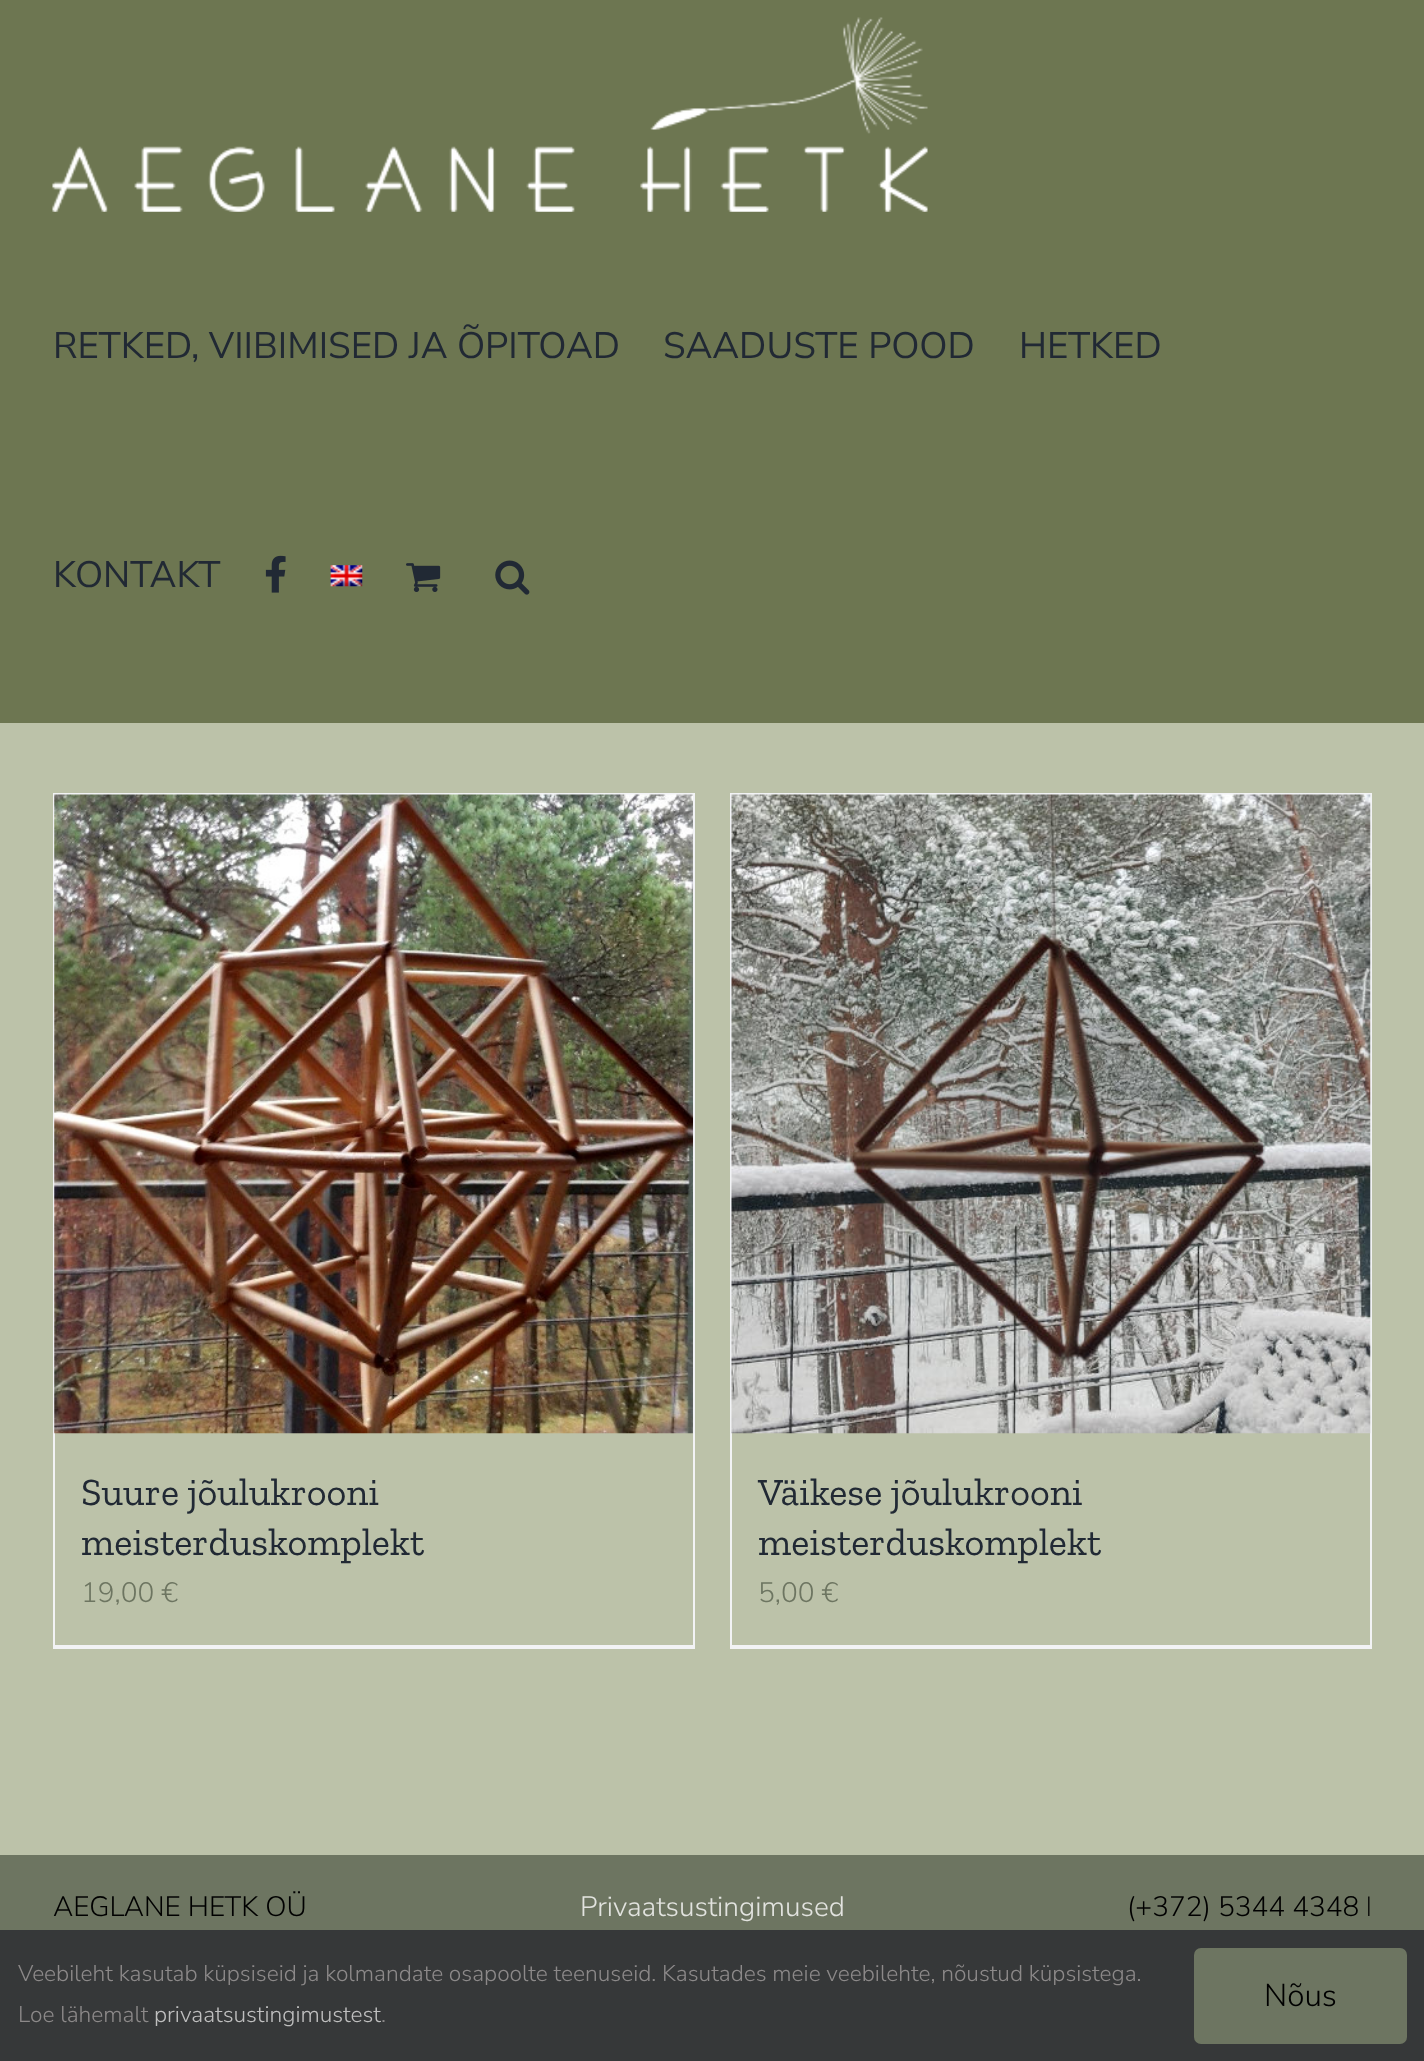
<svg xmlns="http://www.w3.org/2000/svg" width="1424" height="2061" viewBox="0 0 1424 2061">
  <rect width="100%" height="100%" fill="#bcc2a9"/>
  <rect x="0" y="0" width="1424" height="723" fill="#6d7651"/>
  <image x="52" y="17" width="876" height="195" href="img1.png"/>
  <text x="53" y="358" font-family="Nunito Sans" font-size="36.75" fill="#212934">RETKED, VIIBIMISED JA ÕPITOAD</text>
  <text x="663" y="358" font-family="Nunito Sans" font-size="36.75" fill="#212934">SAADUSTE POOD</text>
  <text x="1019" y="358" font-family="Nunito Sans" font-size="36.75" fill="#212934">HETKED</text>
  <text x="53" y="587" font-family="Nunito Sans" font-size="36.75" fill="#212934">KONTAKT</text>
  <image x="265" y="555" width="21" height="38" href="img2.png"/>
  <image x="330" y="565" width="33" height="22" href="img3.png"/>
  <image x="406" y="563" width="35" height="29" href="img4.png"/>
  <image x="495" y="560" width="35" height="35" href="img5.png"/>
  <rect x="53" y="793" width="642" height="2" fill="#f2f3f5"/>
  <rect x="693" y="793" width="2" height="856" fill="#f2f3f5"/>
  <rect x="53" y="1645" width="642" height="4" fill="#f2f3f5"/>
  <rect x="53" y="793" width="2" height="856" fill="#f2f3f5"/>
  <image x="54" y="794" width="639" height="640" href="img6.png"/>
  <text x="81" y="1505" font-family="Zilla Slab" font-size="38.5" fill="#212934">Suure jõulukrooni</text>
  <text x="81" y="1555" font-family="Zilla Slab" font-size="38.5" fill="#212934">meisterduskomplekt</text>
  <text x="81" y="1602" font-family="Nunito Sans" font-size="28" font-weight="300" fill="#6d7561">19,00 €</text>
  <rect x="730" y="793" width="642" height="2" fill="#f2f3f5"/>
  <rect x="1370" y="793" width="2" height="856" fill="#f2f3f5"/>
  <rect x="730" y="1645" width="642" height="4" fill="#f2f3f5"/>
  <rect x="730" y="793" width="2" height="856" fill="#f2f3f5"/>
  <image x="731" y="794" width="640" height="640" href="img7.png"/>
  <text x="758" y="1505" font-family="Zilla Slab" font-size="38.5" fill="#212934">Väikese jõulukrooni</text>
  <text x="758" y="1555" font-family="Zilla Slab" font-size="38.5" fill="#212934">meisterduskomplekt</text>
  <text x="758" y="1602" font-family="Nunito Sans" font-size="28" font-weight="300" fill="#6d7561">5,00 €</text>
  <rect x="0" y="1855" width="1424" height="75" fill="#6d7561"/>
  <text x="53" y="1916" font-family="Nunito Sans" font-size="28" font-weight="300" fill="#000000">AEGLANE HETK OÜ</text>
  <text x="580" y="1916" font-family="Nunito Sans" font-size="28" font-weight="300" fill="#e2e3df">Privaatsustingimused</text>
  <text x="1127" y="1916" font-family="Nunito Sans" font-size="28" font-weight="300" fill="#000000">(+372) 5344 4348</text>
  <text x="1366" y="1916" font-family="Liberation Serif" font-size="28" fill="#000000">ǀ</text>
  <rect x="0" y="1930" width="1424" height="131" fill="#363839"/>
  <text x="18" y="1981" font-family="Nunito Sans" font-size="22.75" font-weight="300" fill="#8c8989">Veebileht kasutab küpsiseid ja kolmandate osapoolte teenuseid. Kasutades meie veebilehte, nõustud küpsistega.</text>
  <text x="18" y="2022" font-family="Nunito Sans" font-size="22.75" font-weight="300" fill="#8c8989">Loe lähemalt</text>
  <text x="154" y="2022" font-family="Nunito Sans" font-size="22.75" font-weight="300" fill="#bfbfbf">privaatsustingimustest</text>
  <text x="381" y="2022" font-family="Nunito Sans" font-size="22.75" font-weight="300" fill="#8c8989">.</text>
  <rect x="1194" y="1948" width="213" height="96" rx="7" fill="#6d7561"/>
  <text x="1264" y="2006" font-family="Nunito Sans" font-size="31.5" font-weight="300" fill="#000000">Nõus</text>
</svg>
